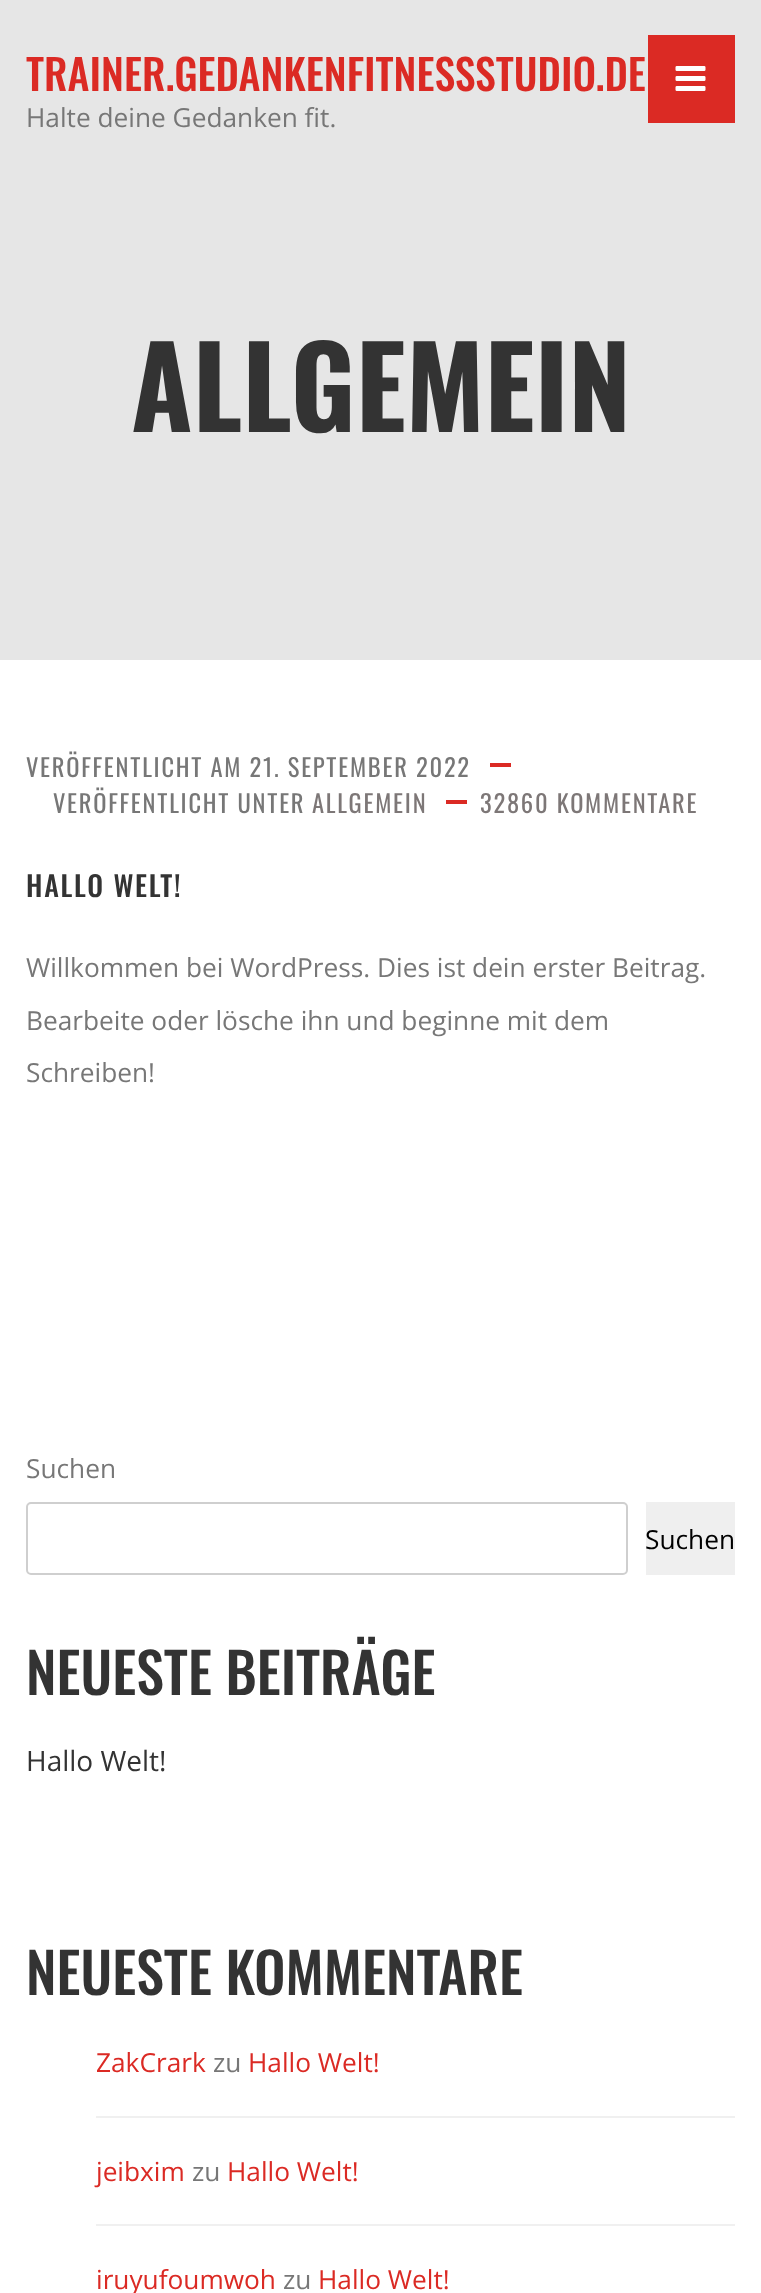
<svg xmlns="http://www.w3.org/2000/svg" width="761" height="2293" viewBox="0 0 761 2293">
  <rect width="100%" height="100%" fill="#ffffff"/>
  <rect x="0" y="0" width="761" height="660" fill="#e6e6e6"/>
  <text x="26" y="91" font-family="Oswald" font-size="42" font-weight="500" fill="#db2a24">TRAINER.GEDANKENFITNESSSTUDIO.DE</text>
  <text x="26" y="127" font-family="Open Sans" font-size="26.25" fill="#777777">Halte deine Gedanken fit.</text>
  <rect x="648" y="35" width="87" height="88" fill="#db2a24"/>
  <image x="675" y="66" width="31" height="25" href="img1.png"/>
  <text x="131" y="432" font-family="Oswald" font-size="112" font-weight="bold" fill="#333333">ALLGEMEIN</text>
  <text x="26" y="777" font-family="Oswald" font-size="24.5" letter-spacing="1.75" fill="#777777">VERÖFFENTLICHT AM 21. SEPTEMBER 2022</text>
  <rect x="490" y="763" width="21" height="4" fill="#db2a24"/>
  <text x="53" y="813" font-family="Oswald" font-size="24.5" letter-spacing="1.75" fill="#777777">VERÖFFENTLICHT UNTER</text>
  <text x="312" y="813" font-family="Oswald" font-size="24.5" letter-spacing="1.75" fill="#7d7777">ALLGEMEIN</text>
  <rect x="446" y="800" width="21" height="4" fill="#db2a24"/>
  <text x="480" y="813" font-family="Oswald" font-size="24.5" letter-spacing="1.75" fill="#7d7777">32860 KOMMENTARE</text>
  <text x="26" y="897" font-family="Oswald" font-size="28" font-weight="500" letter-spacing="1.75" fill="#333333">HALLO WELT!</text>
  <text x="26" y="977" font-family="Open Sans" font-size="26.25" fill="#777777">Willkommen bei WordPress. Dies ist dein erster Beitrag.</text>
  <text x="26" y="1030" font-family="Open Sans" font-size="26.25" fill="#777777">Bearbeite oder lösche ihn und beginne mit dem</text>
  <text x="26" y="1082" font-family="Open Sans" font-size="26.25" fill="#777777">Schreiben!</text>
  <text x="26" y="1478" font-family="Open Sans" font-size="26.25" fill="#777777">Suchen</text>
  <rect x="27" y="1503" width="600" height="71" rx="4" fill="none" stroke="#cfcfcf" stroke-width="2"/>
  <rect x="646" y="1502" width="89" height="73" fill="#efefef"/>
  <text x="645" y="1549" font-family="Open Sans" font-size="26.25" fill="#000000">Suchen</text>
  <text x="26" y="1695" font-family="Oswald" font-size="56" font-weight="500" fill="#333333">NEUESTE BEITRÄGE</text>
  <text x="26" y="1771" font-family="Open Sans" font-size="28" fill="#333333">Hallo Welt!</text>
  <text x="26" y="1995" font-family="Oswald" font-size="56" font-weight="500" fill="#333333">NEUESTE KOMMENTARE</text>
  <rect x="96" y="2116" width="639" height="2" fill="#f0f0f0"/>
  <text x="96" y="2072" font-family="Open Sans" font-size="26.25" fill="#db2a24">ZakCrark</text>
  <text x="213" y="2072" font-family="Open Sans" font-size="26.25" fill="#777777">zu</text>
  <text x="248" y="2072" font-family="Open Sans" font-size="26.25" fill="#db2a24">Hallo Welt!</text>
  <rect x="96" y="2224" width="639" height="2" fill="#f0f0f0"/>
  <text x="96" y="2181" font-family="Open Sans" font-size="26.25" fill="#db2a24">jeibxim</text>
  <text x="192" y="2181" font-family="Open Sans" font-size="26.25" fill="#777777">zu</text>
  <text x="227" y="2181" font-family="Open Sans" font-size="26.25" fill="#db2a24">Hallo Welt!</text>
  <text x="96" y="2289" font-family="Open Sans" font-size="26.25" fill="#db2a24">iruyufoumwoh</text>
  <text x="283" y="2289" font-family="Open Sans" font-size="26.25" fill="#777777">zu</text>
  <text x="318" y="2289" font-family="Open Sans" font-size="26.25" fill="#db2a24">Hallo Welt!</text>
</svg>
